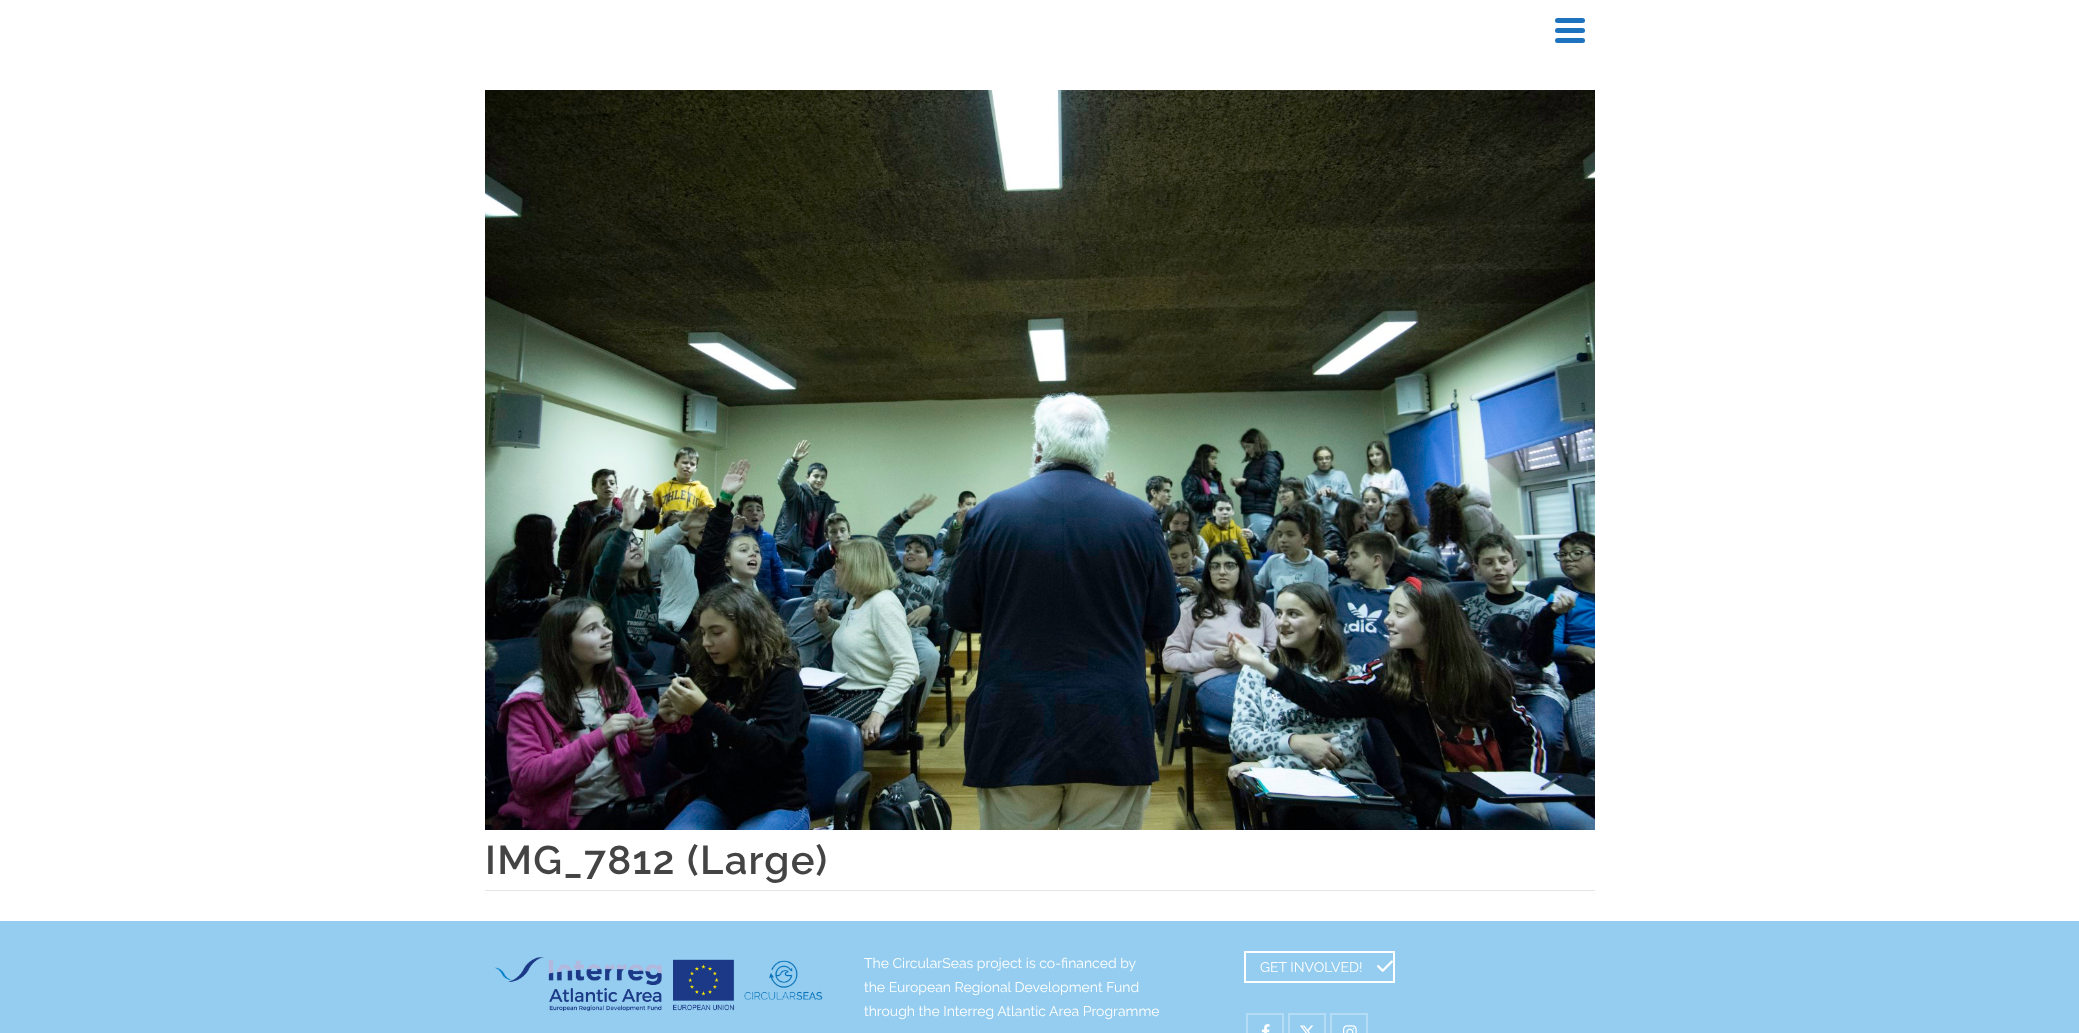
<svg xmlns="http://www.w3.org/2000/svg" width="2079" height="1033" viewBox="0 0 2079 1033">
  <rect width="100%" height="100%" fill="#ffffff"/>
  <rect x="1555" y="18" width="30" height="5" rx="2.5" fill="#1e73be"/>
  <rect x="1555" y="28" width="30" height="5" rx="2.5" fill="#1e73be"/>
  <rect x="1555" y="38" width="30" height="5" rx="2.5" fill="#1e73be"/>
  <image x="485" y="90" width="1110" height="740" href="img1.png"/>
  <text x="485" y="874" font-family="Raleway" font-size="40" font-weight="600" letter-spacing="1.25" fill="#444444">IMG_7812 (Large)</text>
  <rect x="485" y="890" width="1110" height="1" fill="#e6e6e6"/>
  <rect x="0" y="921" width="2079" height="112" fill="#94cdef"/>
  <image x="494" y="957" width="329" height="55" href="img2.png"/>
  <text x="864" y="968" font-family="Raleway" font-size="14" fill="#ffffff">The CircularSeas project is co-financed by</text>
  <text x="864" y="992" font-family="Raleway" font-size="14" fill="#ffffff">the European Regional Development Fund</text>
  <text x="864" y="1016" font-family="Raleway" font-size="14" fill="#ffffff">through the Interreg Atlantic Area Programme</text>
  <rect x="1245" y="952" width="149" height="30" fill="none" stroke="#ffffff" stroke-width="2"/>
  <text x="1260" y="972" font-family="Raleway" font-size="14" fill="#ffffff">GET INVOLVED!</text>
  <image x="1377" y="960" width="16" height="12" href="img3.png"/>
  <rect x="1247" y="1014" width="36" height="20" fill="none" stroke="#b4dcf4" stroke-width="2"/>
  <image x="1261" y="1024" width="9" height="9" href="img4.png"/>
  <rect x="1289" y="1014" width="36" height="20" fill="none" stroke="#b4dcf4" stroke-width="2"/>
  <image x="1300" y="1025" width="14" height="8" href="img5.png"/>
  <rect x="1331" y="1014" width="36" height="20" fill="none" stroke="#b4dcf4" stroke-width="2"/>
  <image x="1343" y="1025" width="14" height="8" href="img6.png"/>
</svg>
